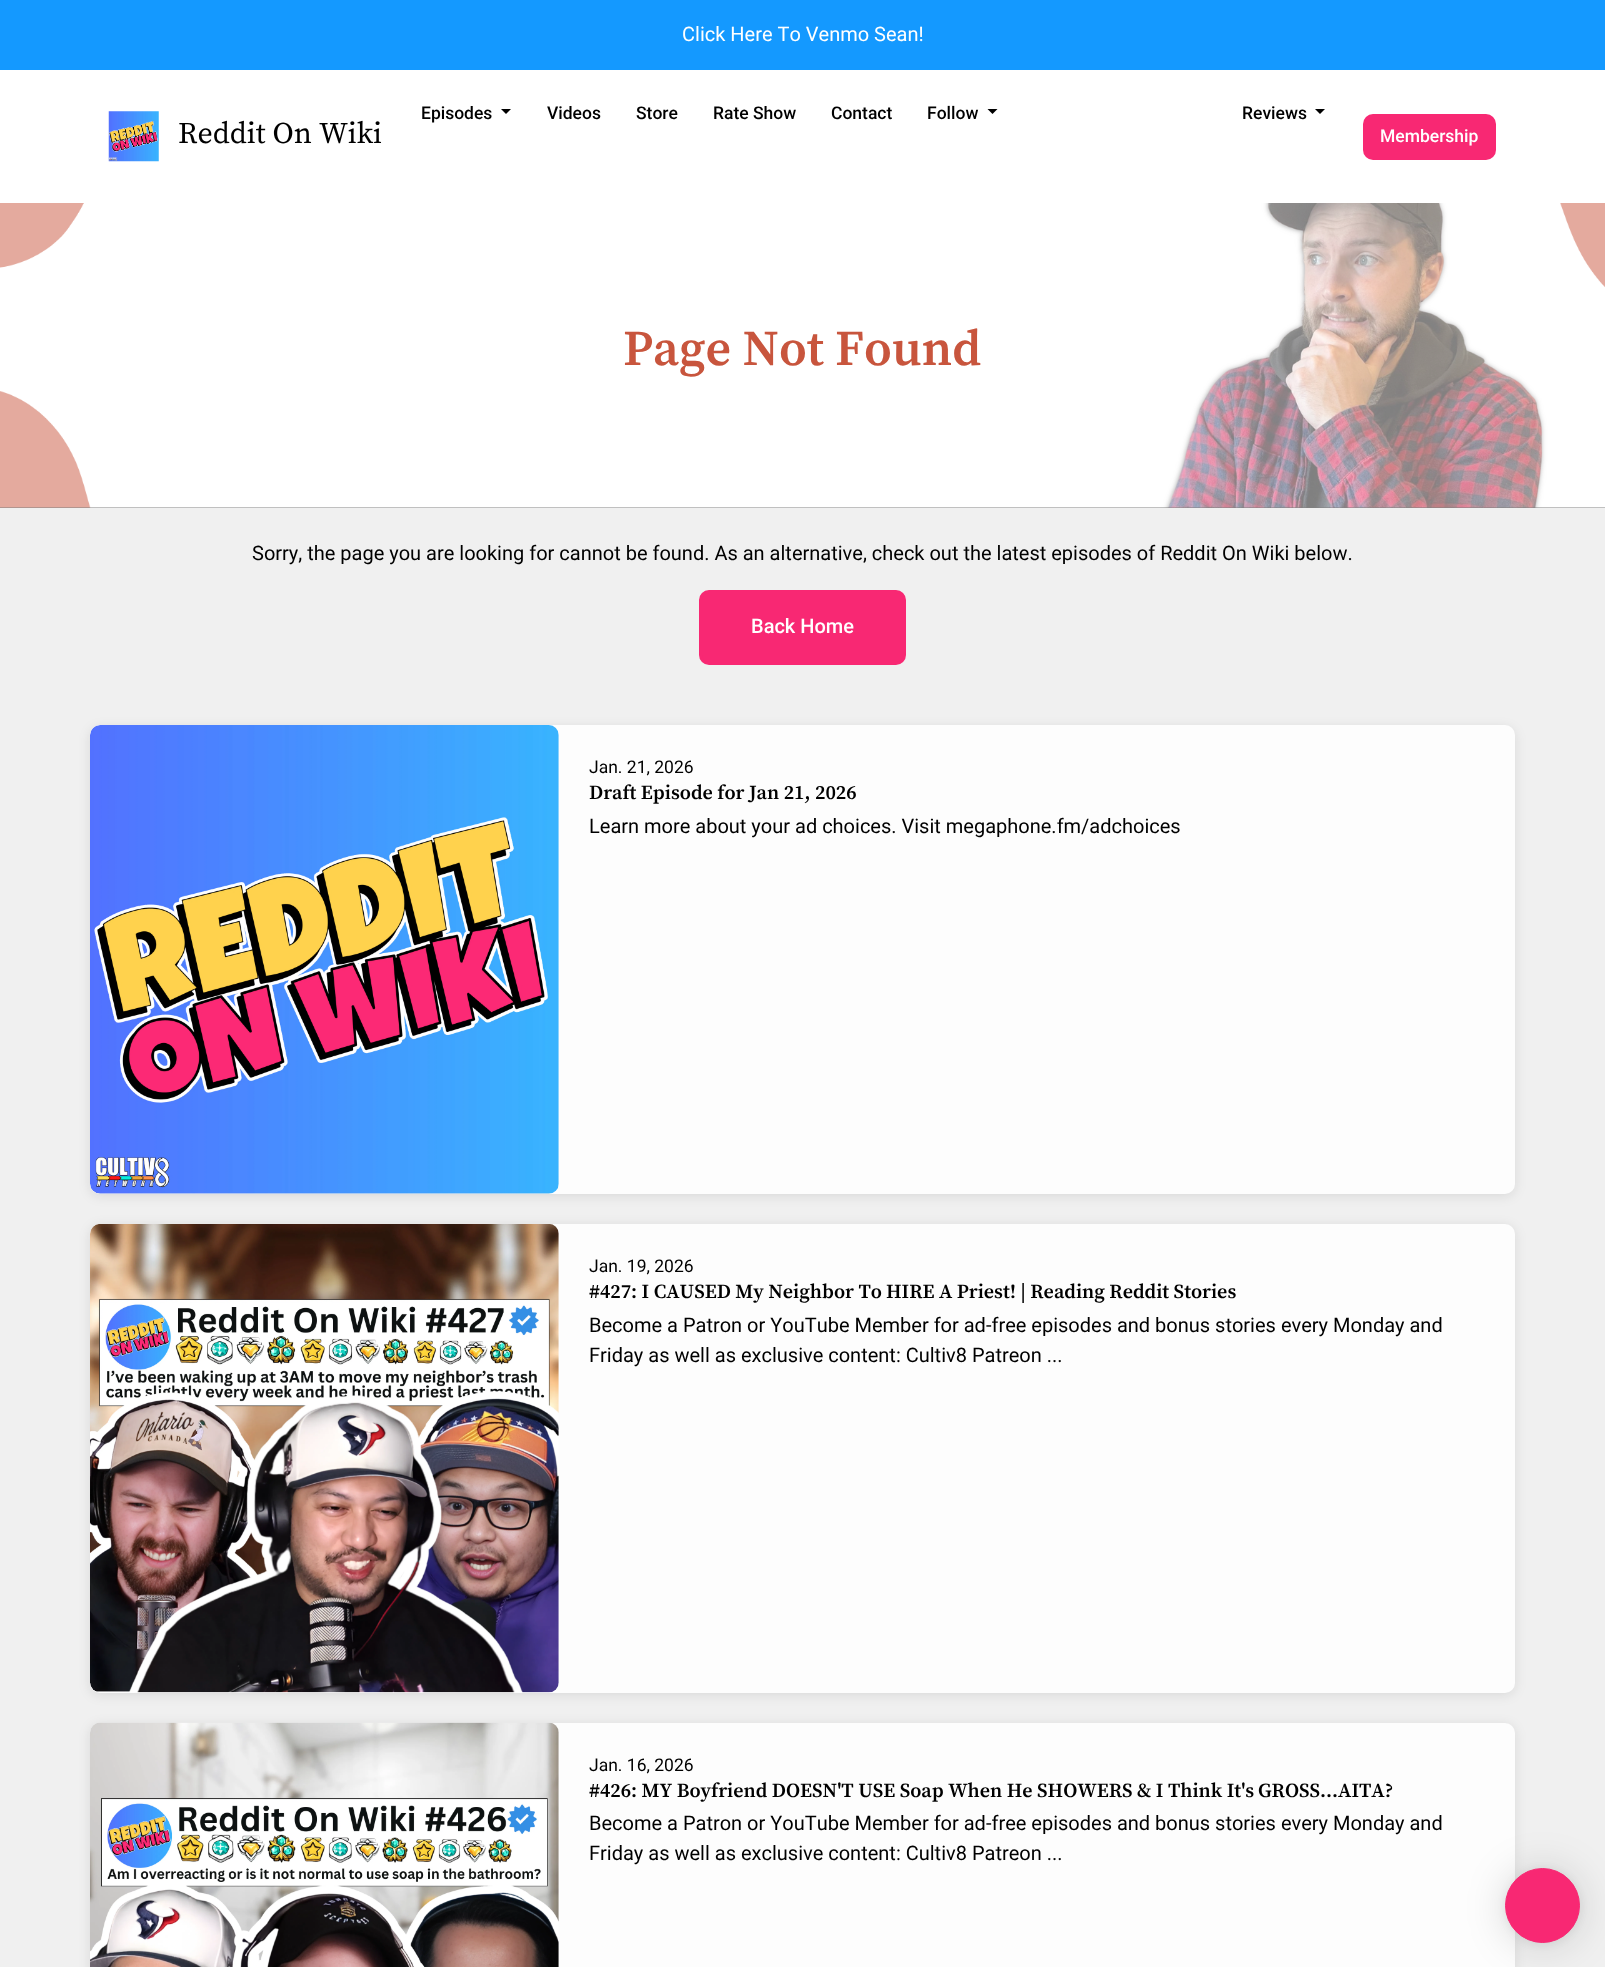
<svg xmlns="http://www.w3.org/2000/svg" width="1605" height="1967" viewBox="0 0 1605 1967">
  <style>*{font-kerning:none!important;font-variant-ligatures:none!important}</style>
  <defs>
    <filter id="blur1" x="-50%" y="-200%" width="200%" height="500%"><feGaussianBlur stdDeviation="6"/></filter>
    <filter id="blur2" x="-50%" y="-200%" width="200%" height="500%"><feGaussianBlur stdDeviation="20"/></filter>
    <filter id="blur3" x="-50%" y="-200%" width="200%" height="500%"><feGaussianBlur stdDeviation="4"/></filter>
  </defs>
  <rect width="100%" height="100%" fill="#f0f0f0"/>
  <rect x="0" y="0" width="1605" height="70" fill="#1499ff"/>
  <text x="682" y="41" font-family="Roboto" font-size="20" fill="#ffffff">Click Here To Venmo Sean!</text>
  <rect x="0" y="70" width="1605" height="133" fill="#ffffff"/>
  <text x="421" y="119" font-family="Roboto" font-size="17.5" font-weight="500" fill="#000000">Episodes</text>
  <path d="M501 109H511L506 114Z" fill="#000000"/>
  <text x="547" y="119" font-family="Roboto" font-size="17.5" font-weight="500" fill="#000000">Videos</text>
  <text x="636" y="119" font-family="Roboto" font-size="17.5" font-weight="500" fill="#000000">Store</text>
  <text x="713" y="119" font-family="Roboto" font-size="17.5" font-weight="500" fill="#000000">Rate Show</text>
  <text x="831" y="119" font-family="Roboto" font-size="17.5" font-weight="500" fill="#000000">Contact</text>
  <text x="927" y="119" font-family="Roboto" font-size="17.5" font-weight="500" fill="#000000">Follow</text>
  <path d="M987.5 109H997.5L992.5 114Z" fill="#000000"/>
  <text x="1242" y="119" font-family="Roboto" font-size="17.5" font-weight="500" fill="#000000">Reviews</text>
  <path d="M1315 109H1325L1320 114Z" fill="#000000"/>
  <image x="108" y="111" width="51" height="51" href="img1.png"/>
  <text x="178" y="143" font-family="Source Serif Pro" font-size="30" fill="#000000">Reddit On Wiki</text>
  <rect x="1363" y="114" width="133" height="46" rx="10" fill="#f82873"/>
  <text x="1380" y="142" font-family="Roboto" font-size="17.5" font-weight="500" fill="#ffffff">Membership</text>
  <rect x="0" y="507" width="1605" height="1" fill="#808080"/>
  <image x="0" y="203" width="1605" height="305" href="img2.png"/>
  <text x="623" y="365" font-family="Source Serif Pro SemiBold" font-size="50" font-weight="600" fill="#c8553d">Page Not Found</text>
  <text x="252" y="560" font-family="Roboto" font-size="20" fill="#000000">Sorry, the page you are looking for cannot be found. As an alternative, check out the latest episodes of Reddit On Wiki below.</text>
  <rect x="700.5" y="591.5" width="204" height="72" rx="8.5" fill="#f82873" stroke="#f82873" stroke-width="3"/>
  <text x="751" y="633" font-family="Roboto" font-size="20" font-weight="500" fill="#ffffff">Back Home</text>
  <rect x="90" y="728" width="1425" height="468" rx="10" fill="#000000" fill-opacity="0.1" filter="url(#blur1)"/>
  <rect x="90" y="725" width="1425" height="469" rx="10" fill="#fdfdfd"/>
  <image x="90" y="725" width="469" height="469" href="img3.png"/>
  <text x="589" y="773" font-family="Roboto" font-size="17.5" fill="#000000">Jan. 21, 2026</text>
  <text x="589" y="799" font-family="Source Serif Pro SemiBold" font-size="20" font-weight="600" fill="#000000">Draft Episode for Jan 21, 2026</text>
  <text x="589" y="833" font-family="Roboto" font-size="20" fill="#000000">Learn more about your ad choices. Visit megaphone.fm/adchoices</text>
  <rect x="90" y="1226" width="1425" height="469" rx="10" fill="#000000" fill-opacity="0.1" filter="url(#blur1)"/>
  <rect x="90" y="1224" width="1425" height="469" rx="10" fill="#fdfdfd"/>
  <image x="90" y="1224" width="469" height="469" href="img4.png"/>
  <text x="589" y="1272" font-family="Roboto" font-size="17.5" fill="#000000">Jan. 19, 2026</text>
  <text x="589" y="1298" font-family="Source Serif Pro SemiBold" font-size="20" font-weight="600" fill="#000000">#427: I CAUSED My Neighbor To</text>
  <text x="886" y="1298" font-family="Source Serif Pro SemiBold" font-size="20" font-weight="600" fill="#000000">HIRE A Priest! | Reading Reddit Stories</text>
  <text x="589" y="1332" font-family="Roboto" font-size="20" fill="#000000">Become a Patron or YouTube Member for ad-free episodes and bonus stories every Monday and</text>
  <text x="589" y="1362" font-family="Roboto" font-size="20" fill="#000000">Friday as well as exclusive content:  Cultiv8 Patreon ...</text>
  <rect x="90" y="1725" width="1425" height="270" rx="10" fill="#000000" fill-opacity="0.1" filter="url(#blur1)"/>
  <rect x="90" y="1723" width="1425" height="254" rx="10" fill="#fdfdfd"/>
  <image x="90" y="1722" width="469" height="245" href="img5.png"/>
  <text x="589" y="1771" font-family="Roboto" font-size="17.5" fill="#000000">Jan. 16, 2026</text>
  <text x="589" y="1797" font-family="Source Serif Pro SemiBold" font-size="20" font-weight="600" fill="#000000">#426: MY Boyfriend DOESN'T USE Soap When He SHOWERS &amp; I Think It's</text>
  <text x="1258" y="1797" font-family="Source Serif Pro SemiBold" font-size="20" font-weight="600" fill="#000000">GROSS...AITA?</text>
  <text x="589" y="1830" font-family="Roboto" font-size="20" fill="#000000">Become a Patron or YouTube Member for ad-free episodes and bonus stories every Monday and</text>
  <text x="589" y="1860" font-family="Roboto" font-size="20" fill="#000000">Friday as well as exclusive content:  Cultiv8 Patreon ...</text>
  <rect x="1505" y="1870" width="75" height="75" rx="37.5" fill="#000000" fill-opacity="0.16" filter="url(#blur2)"/>
  <rect x="1505" y="1869" width="75" height="75" rx="37.5" fill="#000000" fill-opacity="0.06" filter="url(#blur3)"/>
  <circle cx="1542.5" cy="1905.5" r="37" fill="#f82873" stroke="#f82873"/>
</svg>
